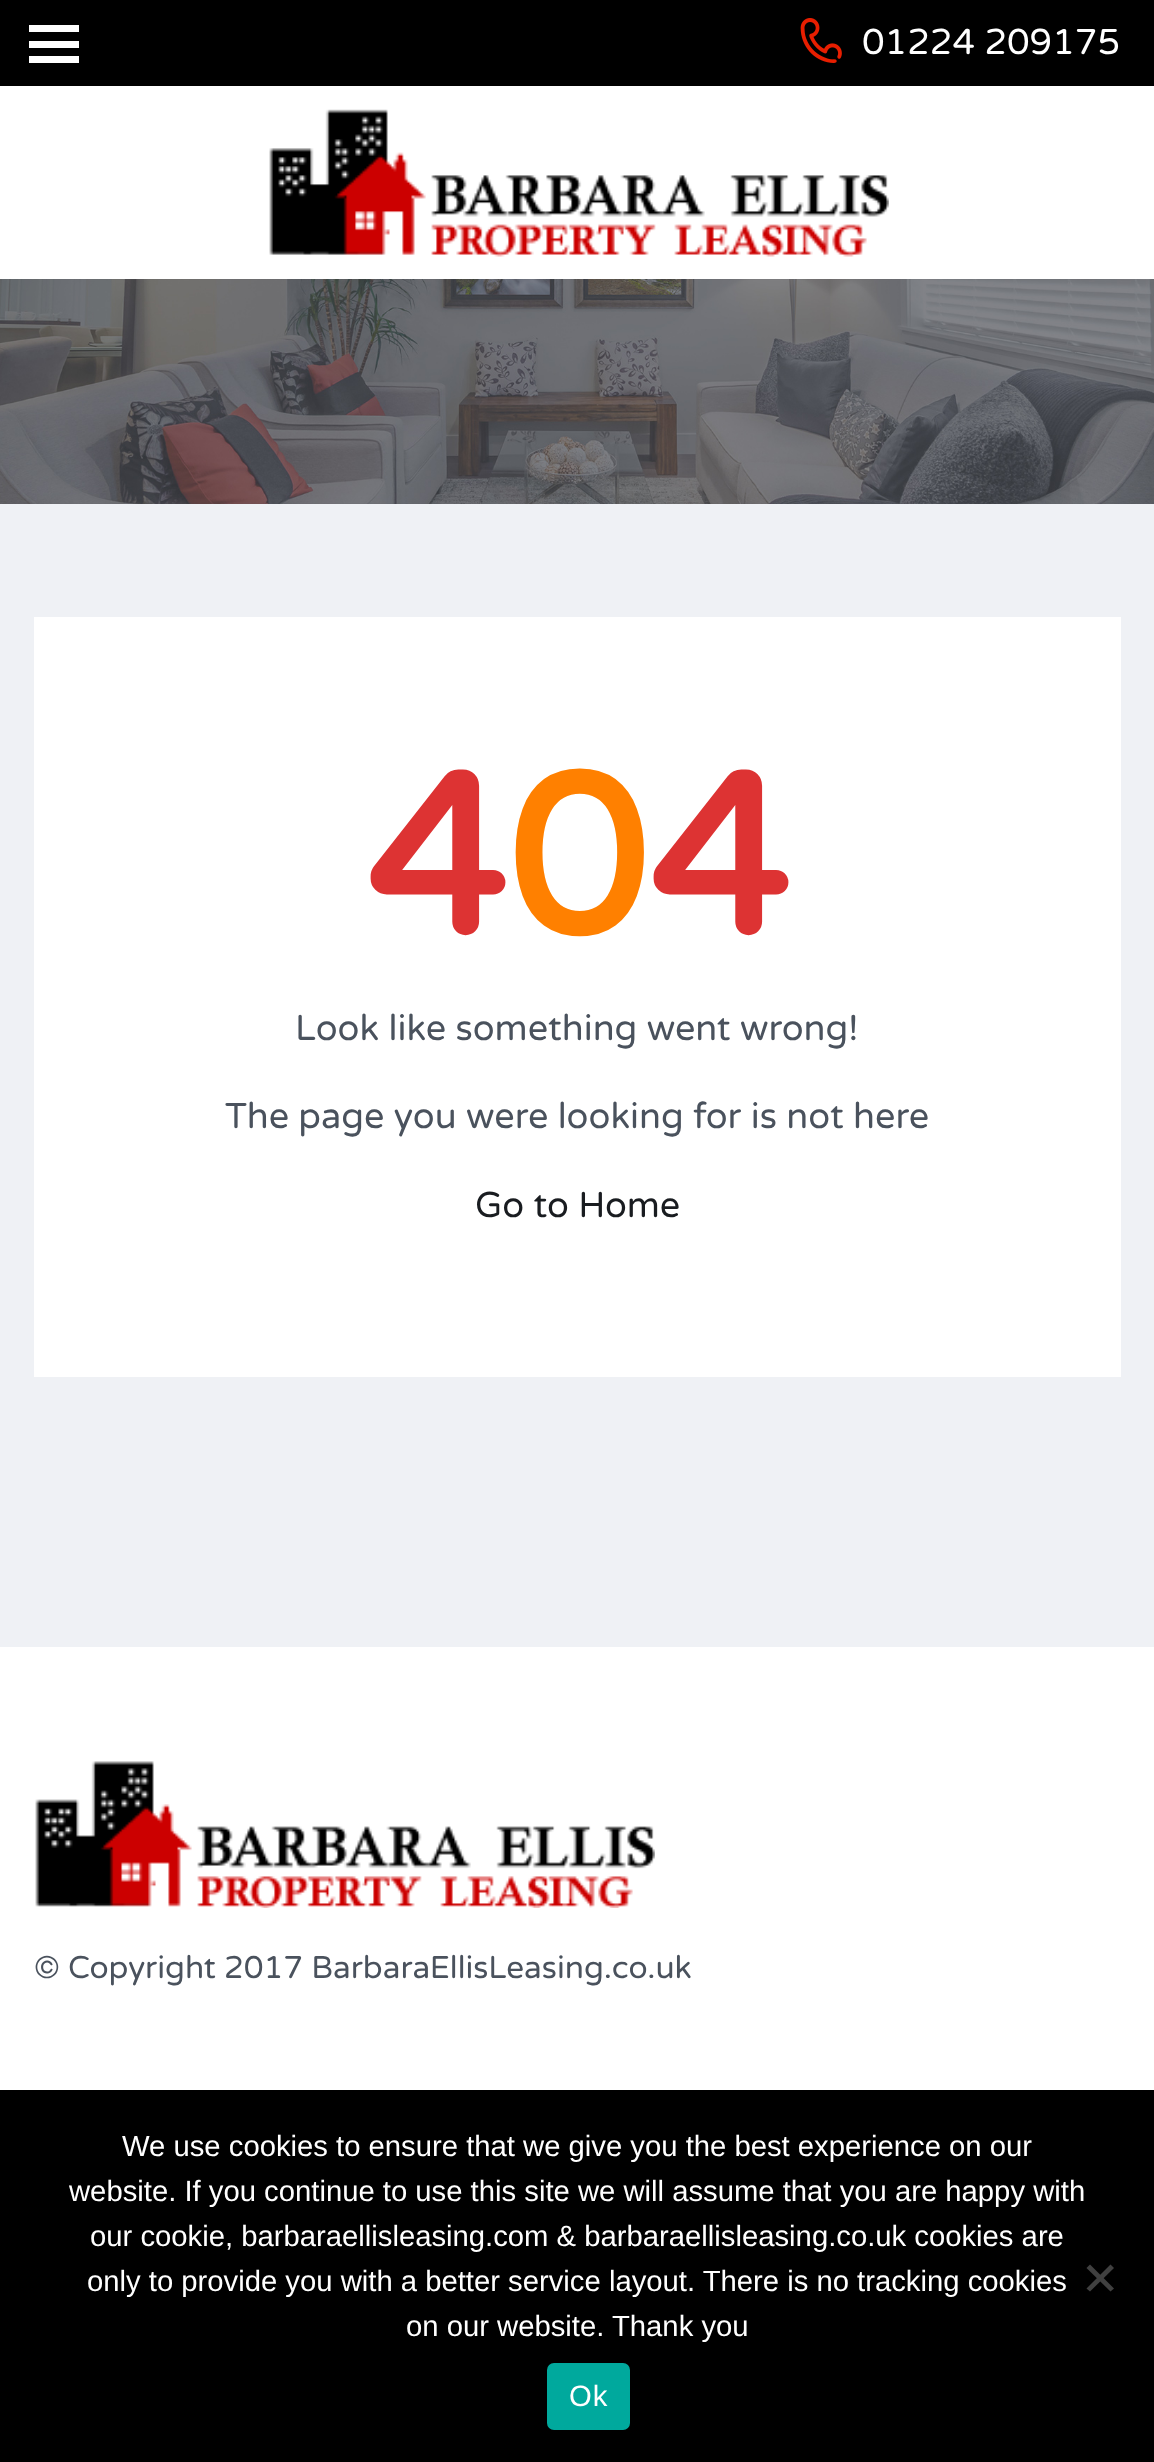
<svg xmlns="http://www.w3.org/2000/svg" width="1154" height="2462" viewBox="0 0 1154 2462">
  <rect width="100%" height="100%" fill="#eff1f5"/>
  <rect x="0" y="0" width="1154" height="86" fill="#000000"/>
  <rect x="29" y="25" width="50" height="7" fill="#ffffff"/>
  <rect x="29" y="41" width="50" height="7" fill="#ffffff"/>
  <rect x="29" y="56" width="50" height="7" fill="#ffffff"/>
  <image x="800" y="18" width="42" height="45" href="img1.png"/>
  <text x="862" y="54" font-family="Varela Round" font-size="36" fill="#ffffff">01224 209175</text>
  <rect x="0" y="86" width="1154" height="193" fill="#ffffff"/>
  <image x="269" y="109" width="620" height="148" href="img2.png"/>
  <image x="0" y="279" width="1154" height="225" href="img3.png"/>
  <rect x="34" y="617" width="1087" height="760" fill="#ffffff"/>
  <text x="365" y="934" font-family="Varela Round" font-size="225" font-weight="bold" fill="#dd3333">4</text>
  <text x="506" y="934" font-family="Varela Round" font-size="225" font-weight="bold" fill="#ff8000">0</text>
  <text x="648" y="934" font-family="Varela Round" font-size="225" font-weight="bold" fill="#dd3333">4</text>
  <text x="295" y="1040" font-family="Varela Round" font-size="36" fill="#4a525d">Look like something went wrong!</text>
  <text x="225" y="1128" font-family="Varela Round" font-size="36" fill="#4a525d">The page you were looking for is not here</text>
  <text x="475" y="1217" font-family="Varela Round" font-size="36" fill="#191c20">Go to Home</text>
  <rect x="0" y="1647" width="1154" height="443" fill="#ffffff"/>
  <image x="35" y="1761" width="620" height="147" href="img4.png"/>
  <text x="34" y="1978" font-family="Varela Round" font-size="31.5" fill="#4a525d">© Copyright 2017 BarbaraEllisLeasing.co.uk</text>
  <rect x="0" y="2090" width="1154" height="372" fill="#000000"/>
  <text x="122" y="2156" font-family="Liberation Sans" font-size="29.25" fill="#ffffff">We use cookies to ensure that we give you the best experience on our</text>
  <text x="69" y="2201" font-family="Liberation Sans" font-size="29.25" fill="#ffffff">website. If you continue to use this site we will assume that you are happy with</text>
  <text x="90" y="2246" font-family="Liberation Sans" font-size="29.25" fill="#ffffff">our cookie, barbaraellisleasing.com &amp; barbaraellisleasing.co.uk cookies are</text>
  <text x="87" y="2291" font-family="Liberation Sans" font-size="29.25" fill="#ffffff">only to provide you with a better service layout. There is no tracking cookies</text>
  <text x="406" y="2336" font-family="Liberation Sans" font-size="29.25" fill="#ffffff">on our website. Thank you</text>
  <path d="M1110.5 2264.5L1114 2268L1090 2291.5L1086.5 2288.5Z" fill="#404040"/>
  <path d="M1086.5 2268L1090 2264.5L1114 2288.5L1110.5 2291.5Z" fill="#404040"/>
  <rect x="547" y="2363" width="83" height="67" rx="7" fill="#00a99d"/>
  <text x="569" y="2406" font-family="Liberation Sans" font-size="29.25" letter-spacing="1" fill="#ffffff">Ok</text>
</svg>
